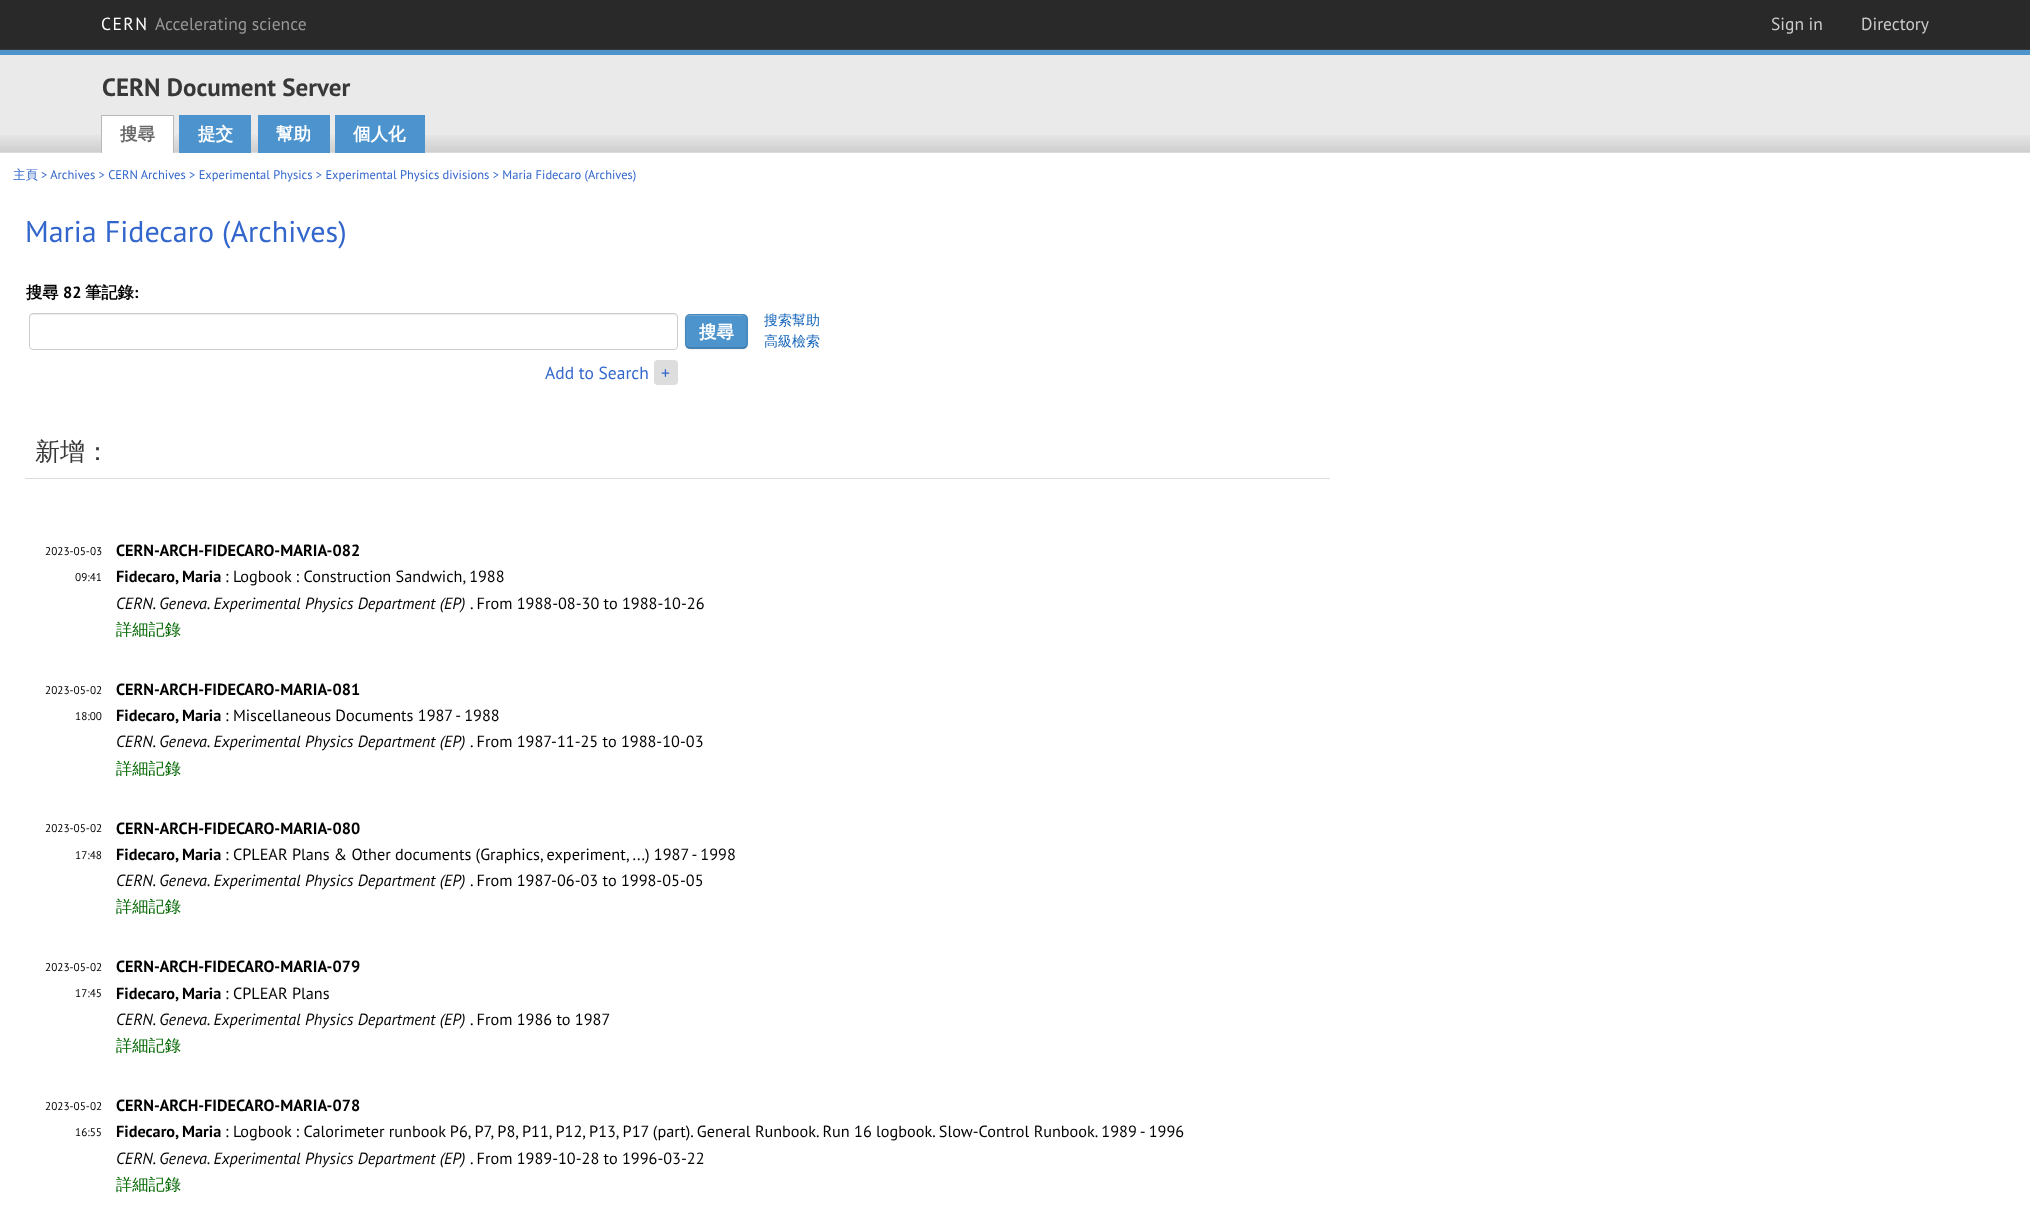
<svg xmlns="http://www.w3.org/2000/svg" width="2030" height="1220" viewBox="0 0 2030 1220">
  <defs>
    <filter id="blur1" x="-50%" y="-200%" width="200%" height="500%"><feGaussianBlur stdDeviation="1"/></filter>
  </defs>
  <rect width="100%" height="100%" fill="#ffffff"/>
  <rect x="0" y="0" width="2030" height="49" fill="#292929"/>
  <rect x="0" y="49" width="2030" height="1" fill="#353535"/>
  <text x="101" y="30" font-family="PT Sans" font-size="17.5" letter-spacing="1.5" fill="#ffffff">CERN</text>
  <text x="155" y="30" font-family="PT Sans" font-size="17.5" fill="#999999">Accelerating science</text>
  <text x="1771" y="30" font-family="PT Sans" font-size="17.5" fill="#cccccc">Sign in</text>
  <text x="1861" y="30" font-family="PT Sans" font-size="17.5" fill="#cccccc">Directory</text>
  <rect x="0" y="55" width="2030" height="98" fill="#eaeaea"/>
  <image x="0" y="135" width="2030" height="18" href="img1.png"/>
  <rect x="0" y="50" width="2030" height="5" fill="#4d94cc"/>
  <text x="102" y="96" font-family="PT Sans" font-size="25" font-weight="bold" fill="#383838">CERN Document Server</text>
  <rect x="102" y="116" width="71" height="37" fill="#ffffff"/>
  <rect x="101" y="115" width="73" height="1" fill="#b8b8b8"/>
  <rect x="173" y="115" width="1" height="38" fill="#b8b8b8"/>
  <rect x="101" y="115" width="1" height="38" fill="#b8b8b8"/>
  <text x="120" y="140" font-family="WenQuanYi Zen Hei" font-size="17.5" font-weight="bold" fill="#686868">搜尋</text>
  <rect x="179" y="115" width="72" height="38" fill="#4d94ce"/>
  <text x="198" y="140" font-family="WenQuanYi Zen Hei" font-size="17.5" font-weight="bold" fill="#ffffff">提交</text>
  <rect x="258" y="115" width="72" height="38" fill="#4d94ce"/>
  <text x="276" y="140" font-family="WenQuanYi Zen Hei" font-size="17.5" font-weight="bold" fill="#ffffff">幫助</text>
  <rect x="335" y="115" width="90" height="38" fill="#4d94ce"/>
  <text x="353" y="140" font-family="WenQuanYi Zen Hei" font-size="17.5" font-weight="bold" fill="#ffffff">個人化</text>
  <text x="13" y="179" font-family="WenQuanYi Zen Hei" font-size="12.5" font-weight="500" fill="#3366cc">主頁</text>
  <text x="41" y="179" font-family="PT Sans" font-size="12.5" fill="#3366cc">&gt; Archives &gt; CERN Archives &gt; Experimental Physics &gt; Experimental Physics divisions &gt; Maria Fidecaro (Archives)</text>
  <text x="25" y="242" font-family="PT Sans" font-size="30" fill="#3366cc">Maria Fidecaro (Archives)</text>
  <text x="26" y="298" font-family="WenQuanYi Zen Hei" font-size="16.25" font-weight="bold" fill="#000000">搜尋</text>
  <text x="63" y="298" font-family="PT Sans" font-size="16.25" font-weight="bold" fill="#000000">82</text>
  <text x="85" y="298" font-family="WenQuanYi Zen Hei" font-size="16.25" font-weight="bold" fill="#000000">筆記錄</text>
  <text x="134" y="298" font-family="PT Sans" font-size="16.25" font-weight="bold" fill="#000000">:</text>
  <path d="M32 315H674C675 315 676 316 676 318V316C676 315 675 314 674 314H32C31 314 30 315 30 316V318C30 316 31 315 32 315Z" fill="#ececec"/>
  <rect x="29.5" y="313.5" width="648" height="36" rx="3.5" fill="none" stroke="#cccccc"/>
  <rect x="685" y="315" width="63" height="35" rx="5" fill="#000000" fill-opacity="0.05" filter="url(#blur1)"/>
  <rect x="685" y="314" width="63" height="35" rx="5" fill="#4d94cc"/>
  <path d="M690 316H742C745 316 746 318 746 320C746 313 738 315 733 315H699C694 315 686 313 686 320C686 318 688 316 690 316Z" fill="#71a9d6"/>
  <path d="M745.5 347C745 347.5 743.5 348 742.5 348H690C689 348 687.5 347.5 687 347" fill="none" stroke="#000000" stroke-opacity="0.25" stroke-width="1.2"/>
  <path d="M687 347C684.5 344.5 685.5 334.5 685.5 331C685.5 314.5 682.5 314.5 699 314.5H734C750 314.5 747 314.5 747 331C747 334.5 748 344.5 745.5 347" fill="none" stroke="#000000" stroke-opacity="0.1" stroke-width="1.2"/>
  <text x="699" y="338" font-family="WenQuanYi Zen Hei" font-size="17.5" font-weight="bold" fill="#ffffff">搜尋</text>
  <text x="764" y="325" font-family="WenQuanYi Zen Hei" font-size="14" font-weight="500" fill="#1565ba">搜索幫助</text>
  <text x="764" y="346" font-family="WenQuanYi Zen Hei" font-size="14" font-weight="500" fill="#1565ba">高級檢索</text>
  <text x="545" y="379" font-family="PT Sans" font-size="17.5" fill="#3366cc">Add to Search</text>
  <rect x="654" y="360" width="24" height="25" rx="4" fill="#dddddd"/>
  <text x="661" y="379" font-family="PT Sans" font-size="17.5" fill="#3366cc">+</text>
  <rect x="25" y="478" width="1305" height="1" fill="#dddddd"/>
  <text x="35" y="460" font-family="WenQuanYi Zen Hei" font-size="25" font-weight="500" fill="#383838">新增：</text>
  <text x="45" y="555" font-family="PT Sans" font-size="11.25" fill="#000000">2023-05-03</text>
  <text x="75" y="581" font-family="PT Sans" font-size="11.25" fill="#000000">09:41</text>
  <text x="116" y="556" font-family="PT Sans" font-size="16.25" font-weight="bold" fill="#000000">CERN-ARCH-FIDECARO-MARIA-082</text>
  <text x="116" y="582" font-family="PT Sans" font-size="16.25" font-weight="bold" fill="#000000">Fidecaro, Maria</text>
  <text x="225" y="582" font-family="PT Sans" font-size="16.25" fill="#000000">: Logbook : Construction Sandwich, 1988</text>
  <text x="116" y="609" font-family="PT Sans" font-size="16.25" font-style="italic" fill="#000000">CERN. Geneva. Experimental Physics Department (EP)</text>
  <text x="470" y="609" font-family="PT Sans" font-size="16.25" fill="#000000">. From 1988-08-30 to 1988-10-26</text>
  <text x="116" y="635" font-family="WenQuanYi Zen Hei" font-size="16.25" font-weight="500" fill="#006600">詳細記錄</text>
  <text x="45" y="694" font-family="PT Sans" font-size="11.25" fill="#000000">2023-05-02</text>
  <text x="75" y="720" font-family="PT Sans" font-size="11.25" fill="#000000">18:00</text>
  <text x="116" y="695" font-family="PT Sans" font-size="16.25" font-weight="bold" fill="#000000">CERN-ARCH-FIDECARO-MARIA-081</text>
  <text x="116" y="721" font-family="PT Sans" font-size="16.25" font-weight="bold" fill="#000000">Fidecaro, Maria</text>
  <text x="225" y="721" font-family="PT Sans" font-size="16.25" fill="#000000">: Miscellaneous Documents 1987 - 1988</text>
  <text x="116" y="747" font-family="PT Sans" font-size="16.25" font-style="italic" fill="#000000">CERN. Geneva. Experimental Physics Department (EP)</text>
  <text x="470" y="747" font-family="PT Sans" font-size="16.25" fill="#000000">. From 1987-11-25 to 1988-10-03</text>
  <text x="116" y="774" font-family="WenQuanYi Zen Hei" font-size="16.25" font-weight="500" fill="#006600">詳細記錄</text>
  <text x="45" y="832" font-family="PT Sans" font-size="11.25" fill="#000000">2023-05-02</text>
  <text x="75" y="859" font-family="PT Sans" font-size="11.25" fill="#000000">17:48</text>
  <text x="116" y="834" font-family="PT Sans" font-size="16.25" font-weight="bold" fill="#000000">CERN-ARCH-FIDECARO-MARIA-080</text>
  <text x="116" y="860" font-family="PT Sans" font-size="16.25" font-weight="bold" fill="#000000">Fidecaro, Maria</text>
  <text x="225" y="860" font-family="PT Sans" font-size="16.25" fill="#000000">: CPLEAR Plans &amp; Other documents (Graphics, experiment, ...) 1987 - 1998</text>
  <text x="116" y="886" font-family="PT Sans" font-size="16.25" font-style="italic" fill="#000000">CERN. Geneva. Experimental Physics Department (EP)</text>
  <text x="470" y="886" font-family="PT Sans" font-size="16.25" fill="#000000">. From 1987-06-03 to 1998-05-05</text>
  <text x="116" y="912" font-family="WenQuanYi Zen Hei" font-size="16.25" font-weight="500" fill="#006600">詳細記錄</text>
  <text x="45" y="971" font-family="PT Sans" font-size="11.25" fill="#000000">2023-05-02</text>
  <text x="75" y="997" font-family="PT Sans" font-size="11.25" fill="#000000">17:45</text>
  <text x="116" y="972" font-family="PT Sans" font-size="16.25" font-weight="bold" fill="#000000">CERN-ARCH-FIDECARO-MARIA-079</text>
  <text x="116" y="999" font-family="PT Sans" font-size="16.25" font-weight="bold" fill="#000000">Fidecaro, Maria</text>
  <text x="225" y="999" font-family="PT Sans" font-size="16.25" fill="#000000">: CPLEAR Plans</text>
  <text x="116" y="1025" font-family="PT Sans" font-size="16.25" font-style="italic" fill="#000000">CERN. Geneva. Experimental Physics Department (EP)</text>
  <text x="470" y="1025" font-family="PT Sans" font-size="16.25" fill="#000000">. From 1986 to 1987</text>
  <text x="116" y="1051" font-family="WenQuanYi Zen Hei" font-size="16.25" font-weight="500" fill="#006600">詳細記錄</text>
  <text x="45" y="1110" font-family="PT Sans" font-size="11.25" fill="#000000">2023-05-02</text>
  <text x="75" y="1136" font-family="PT Sans" font-size="11.25" fill="#000000">16:55</text>
  <text x="116" y="1111" font-family="PT Sans" font-size="16.25" font-weight="bold" fill="#000000">CERN-ARCH-FIDECARO-MARIA-078</text>
  <text x="116" y="1137" font-family="PT Sans" font-size="16.25" font-weight="bold" fill="#000000">Fidecaro, Maria</text>
  <text x="225" y="1137" font-family="PT Sans" font-size="16.25" fill="#000000">: Logbook : Calorimeter runbook P6, P7, P8, P11, P12, P13, P17 (part). General Runbook. Run 16 logbook. Slow-Control Runbook. 1989 - 1996</text>
  <text x="116" y="1164" font-family="PT Sans" font-size="16.25" font-style="italic" fill="#000000">CERN. Geneva. Experimental Physics Department (EP)</text>
  <text x="470" y="1164" font-family="PT Sans" font-size="16.25" fill="#000000">. From 1989-10-28 to 1996-03-22</text>
  <text x="116" y="1190" font-family="WenQuanYi Zen Hei" font-size="16.25" font-weight="500" fill="#006600">詳細記錄</text>
</svg>
